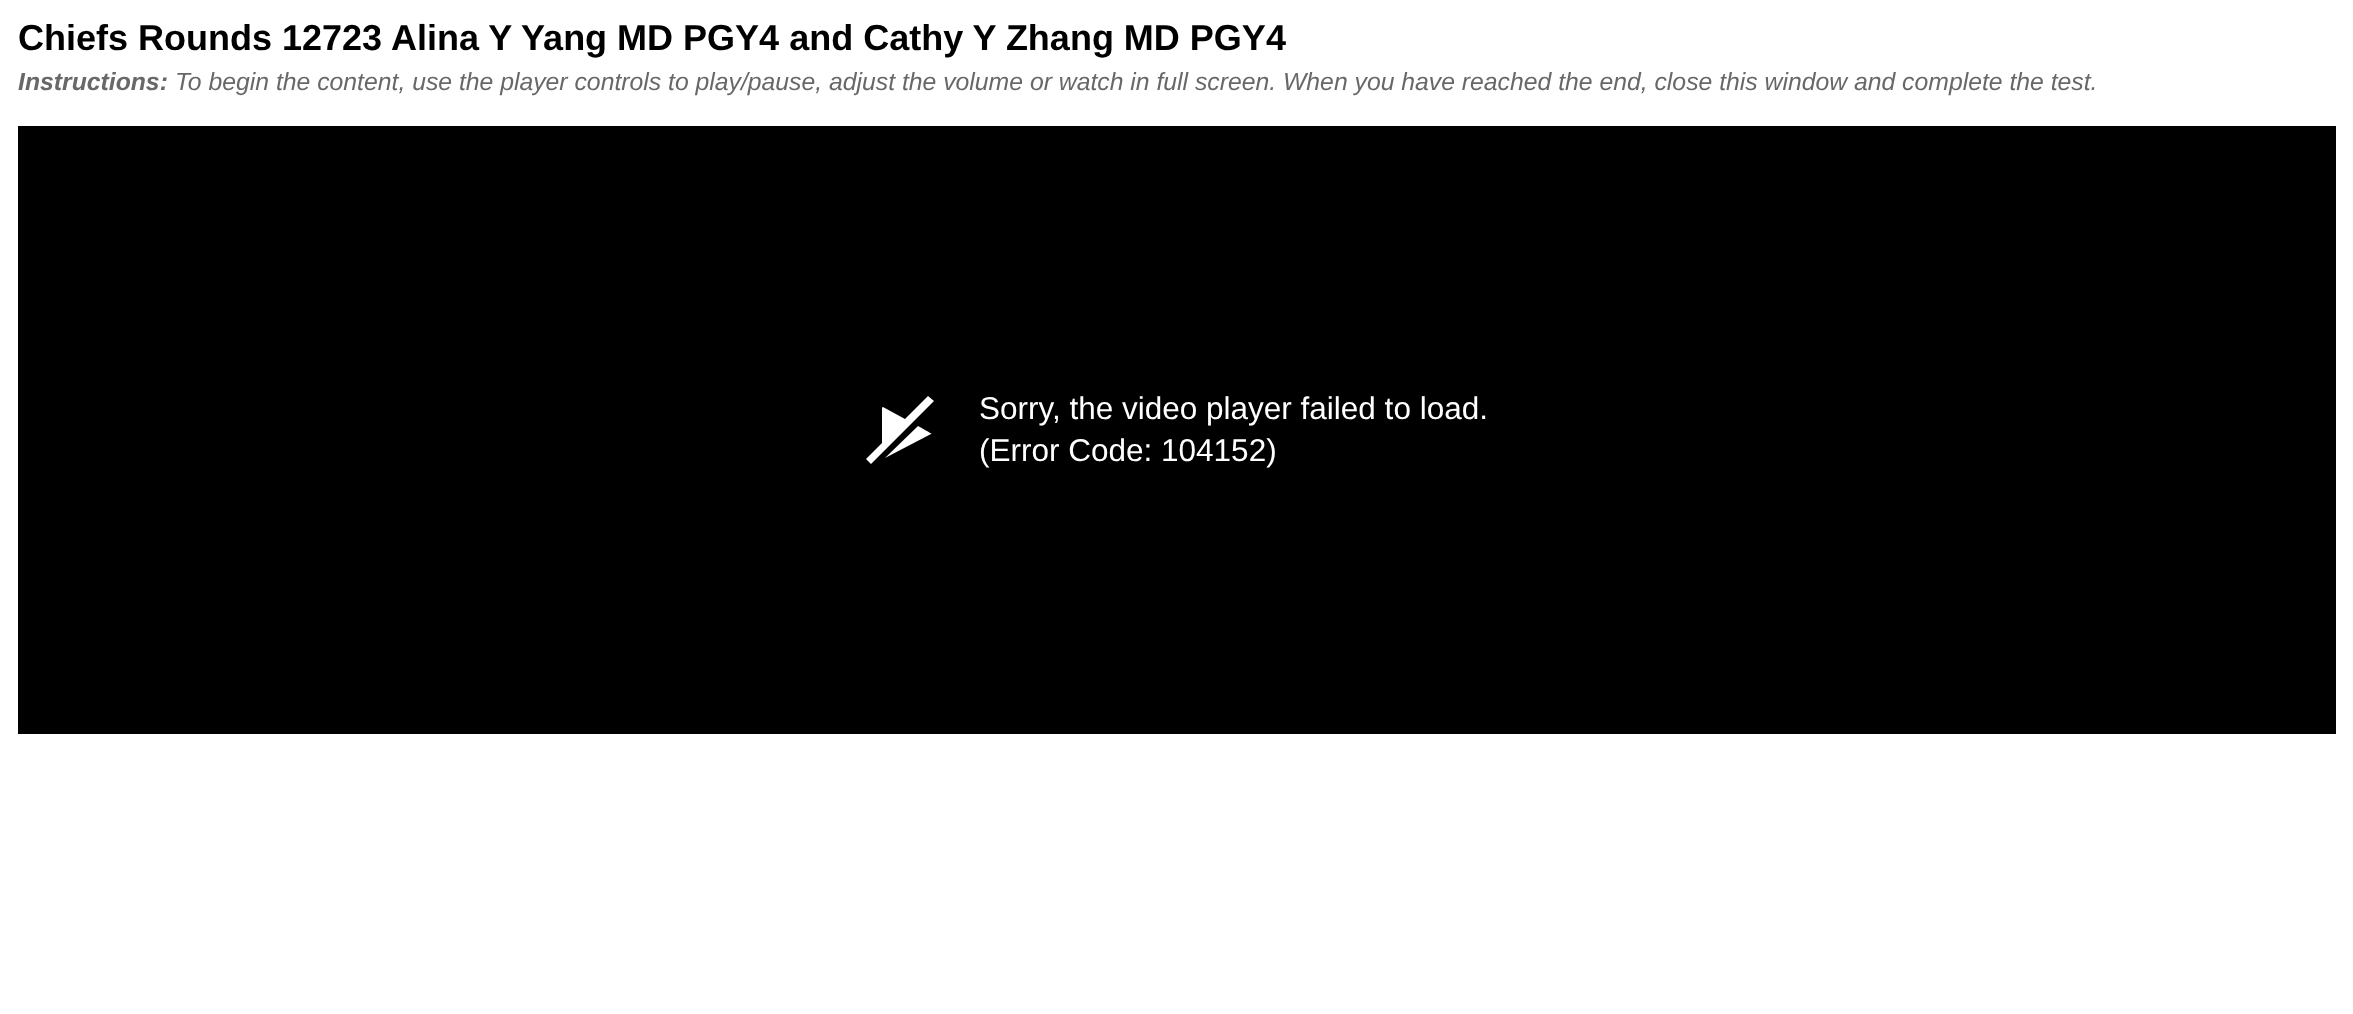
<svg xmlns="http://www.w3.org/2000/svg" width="2353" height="1014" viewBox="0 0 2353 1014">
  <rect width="100%" height="100%" fill="#ffffff"/>
  <text x="18" y="50" font-family="Liberation Sans" font-size="36" font-weight="bold" fill="#000000">Chiefs Rounds 12723</text>
  <text x="391" y="50" font-family="Liberation Sans" font-size="36" font-weight="bold" fill="#000000">Alina Y Yang MD PGY4 and Cathy Y Zhang MD PGY4</text>
  <text x="18" y="90" font-family="Liberation Sans" font-size="24.75" font-weight="bold" font-style="italic" fill="#686868">Instructions:</text>
  <text x="175" y="90" font-family="Liberation Sans" font-size="24.75" font-style="italic" fill="#686868">To begin the content, use the player controls to play/pause, adjust the volume or watch in full screen. When you have reached the end, close this window and complete the test.</text>
  <rect x="18" y="126" width="2318" height="608" fill="#000000"/>
  <path d="M931 434L885 458L918 426C930 433 933 434 931 434ZM928 396L905 419L883 407C883 407 882 407 882 408V443L866 459L871 464L934 401Z" fill="#ffffff"/>
  <text x="979" y="419" font-family="Liberation Sans" font-size="31.5" fill="#ffffff">Sorry, the video player failed to load.</text>
  <text x="979" y="461" font-family="Liberation Sans" font-size="31.5" fill="#ffffff">(Error Code: 104152)</text>
</svg>
